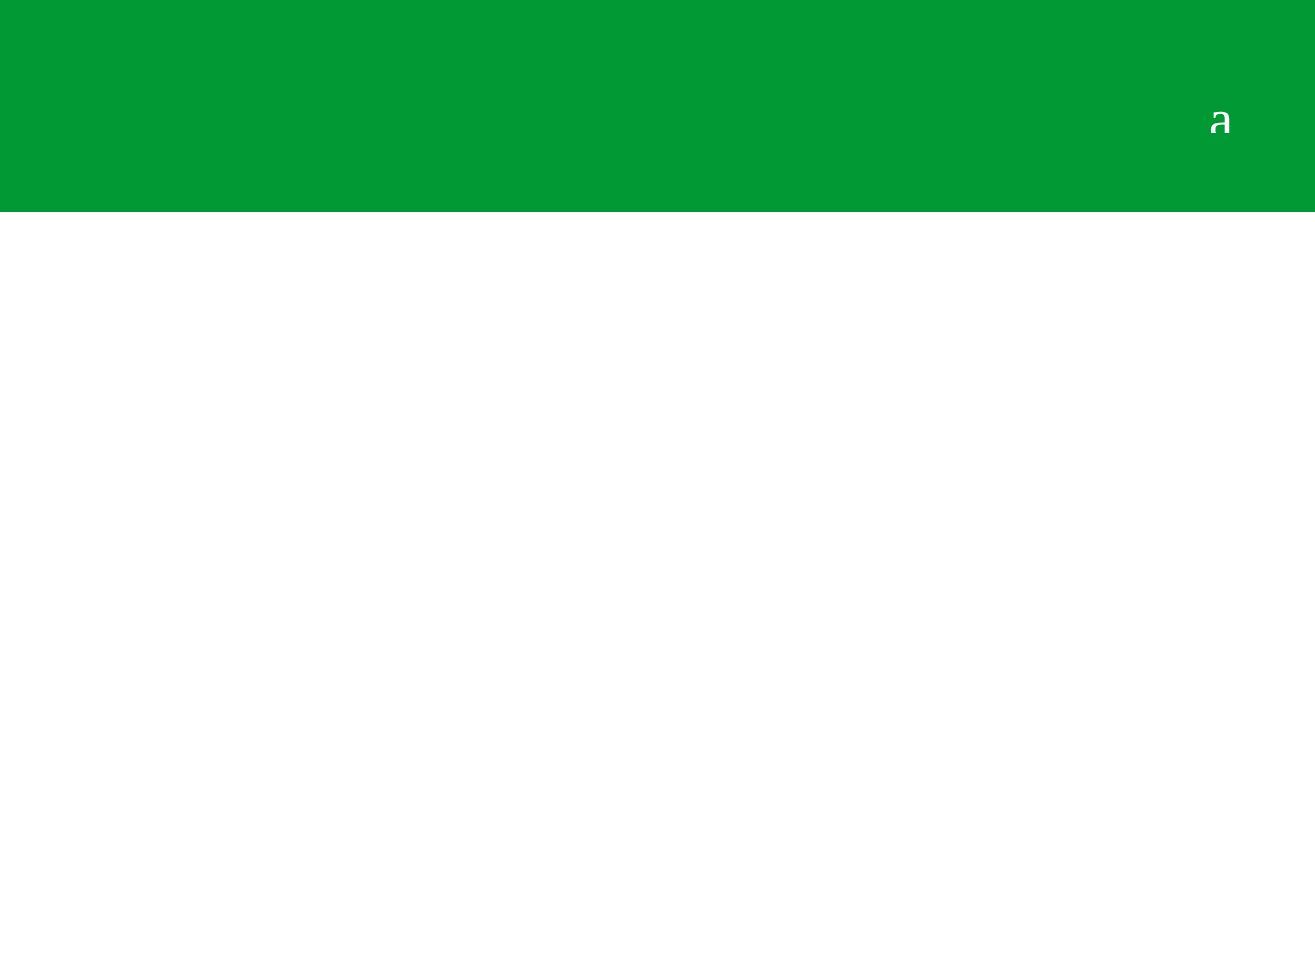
<svg xmlns="http://www.w3.org/2000/svg" width="1315" height="969" viewBox="0 0 1315 969">
  <defs>
    <clipPath id="clip1"><rect x="79" y="79" width="1159" height="54"/></clipPath>
  </defs>
  <rect width="100%" height="100%" fill="#ffffff"/>
  <rect x="0" y="0" width="1315" height="212" fill="#009933"/>
  <g clip-path="url(#clip1)">
    <text x="1209" y="137" font-family="Liberation Serif" font-size="54" fill="#ffffff">a</text>
  </g>
</svg>
